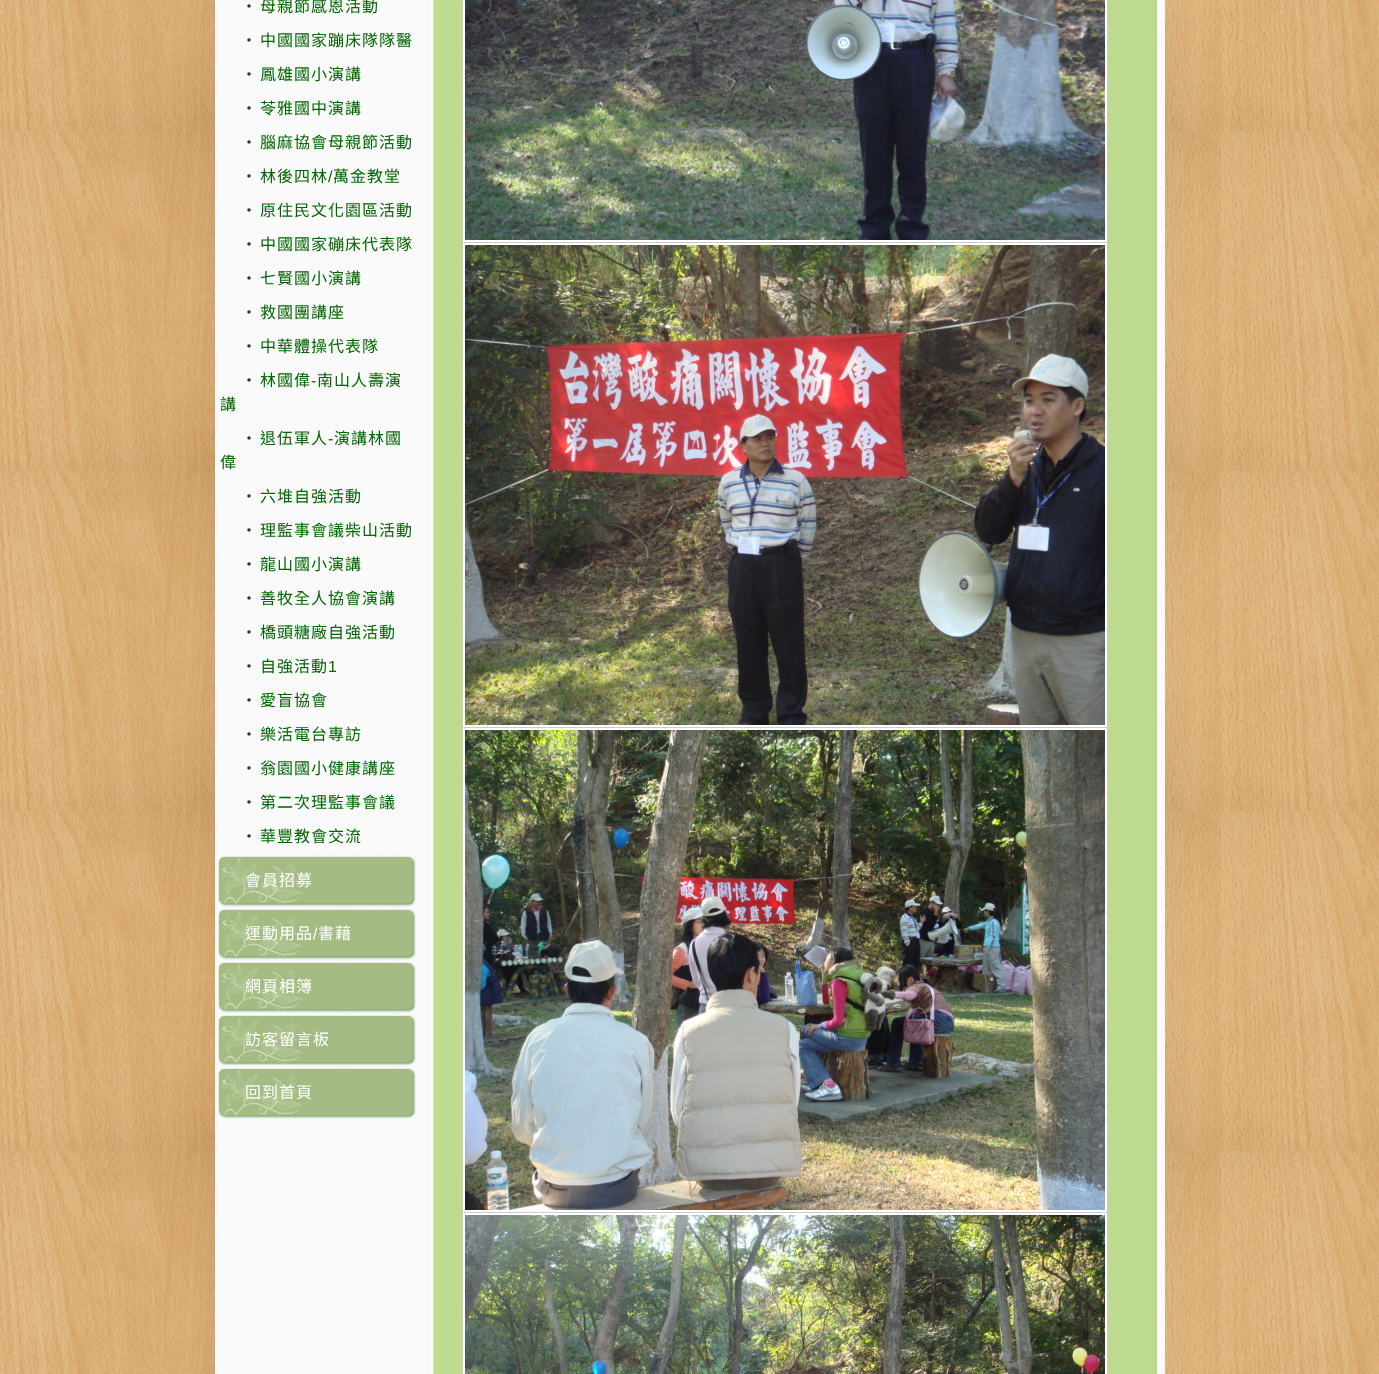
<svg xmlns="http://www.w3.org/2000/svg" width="1379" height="1374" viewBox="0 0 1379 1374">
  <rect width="100%" height="100%" fill="#ffffff"/>
  <image x="0" y="0" width="1379" height="1374" href="img1.png"/>
  <image x="215" y="0" width="950" height="1374" href="img2.png"/>
  <text x="241" y="12" font-family="Noto Sans CJK TC" font-size="16" letter-spacing="3" fill="#333333">‧</text>
  <text x="260" y="12" font-family="Noto Sans CJK TC" font-size="16" letter-spacing="1" fill="#006600">母親節感恩活動</text>
  <text x="241" y="46" font-family="Noto Sans CJK TC" font-size="16" letter-spacing="3" fill="#333333">‧</text>
  <text x="260" y="46" font-family="Noto Sans CJK TC" font-size="16" letter-spacing="1" fill="#006600">中國國家蹦床隊隊醫</text>
  <text x="241" y="80" font-family="Noto Sans CJK TC" font-size="16" letter-spacing="3" fill="#333333">‧</text>
  <text x="260" y="80" font-family="Noto Sans CJK TC" font-size="16" letter-spacing="1" fill="#006600">鳳雄國小演講</text>
  <text x="241" y="114" font-family="Noto Sans CJK TC" font-size="16" letter-spacing="3" fill="#333333">‧</text>
  <text x="260" y="114" font-family="Noto Sans CJK TC" font-size="16" letter-spacing="1" fill="#006600">苓雅國中演講</text>
  <text x="241" y="148" font-family="Noto Sans CJK TC" font-size="16" letter-spacing="3" fill="#333333">‧</text>
  <text x="260" y="148" font-family="Noto Sans CJK TC" font-size="16" letter-spacing="1" fill="#006600">腦麻協會母親節活動</text>
  <text x="241" y="182" font-family="Noto Sans CJK TC" font-size="16" letter-spacing="3" fill="#333333">‧</text>
  <text x="260" y="182" font-family="Noto Sans CJK TC" font-size="16" letter-spacing="1" fill="#006600">林後四林</text>
  <text x="328" y="182" font-family="Liberation Sans" font-size="16" letter-spacing="1" fill="#006600">/</text>
  <text x="333" y="182" font-family="Noto Sans CJK TC" font-size="16" letter-spacing="1" fill="#006600">萬金教堂</text>
  <text x="241" y="216" font-family="Noto Sans CJK TC" font-size="16" letter-spacing="3" fill="#333333">‧</text>
  <text x="260" y="216" font-family="Noto Sans CJK TC" font-size="16" letter-spacing="1" fill="#006600">原住民文化園區活動</text>
  <text x="241" y="250" font-family="Noto Sans CJK TC" font-size="16" letter-spacing="3" fill="#333333">‧</text>
  <text x="260" y="250" font-family="Noto Sans CJK TC" font-size="16" letter-spacing="1" fill="#006600">中國國家磞床代表隊</text>
  <text x="241" y="284" font-family="Noto Sans CJK TC" font-size="16" letter-spacing="3" fill="#333333">‧</text>
  <text x="260" y="284" font-family="Noto Sans CJK TC" font-size="16" letter-spacing="1" fill="#006600">七賢國小演講</text>
  <text x="241" y="318" font-family="Noto Sans CJK TC" font-size="16" letter-spacing="3" fill="#333333">‧</text>
  <text x="260" y="318" font-family="Noto Sans CJK TC" font-size="16" letter-spacing="1" fill="#006600">救國團講座</text>
  <text x="241" y="352" font-family="Noto Sans CJK TC" font-size="16" letter-spacing="3" fill="#333333">‧</text>
  <text x="260" y="352" font-family="Noto Sans CJK TC" font-size="16" letter-spacing="1" fill="#006600">中華體操代表隊</text>
  <text x="241" y="386" font-family="Noto Sans CJK TC" font-size="16" letter-spacing="3" fill="#333333">‧</text>
  <text x="260" y="386" font-family="Noto Sans CJK TC" font-size="16" letter-spacing="1" fill="#006600">林國偉</text>
  <text x="311" y="386" font-family="Liberation Sans" font-size="16" letter-spacing="1" fill="#006600">-</text>
  <text x="317" y="386" font-family="Noto Sans CJK TC" font-size="16" letter-spacing="1" fill="#006600">南山人壽演</text>
  <text x="220" y="410" font-family="Noto Sans CJK TC" font-size="16" letter-spacing="1" fill="#006600">講</text>
  <text x="241" y="444" font-family="Noto Sans CJK TC" font-size="16" letter-spacing="3" fill="#333333">‧</text>
  <text x="260" y="444" font-family="Noto Sans CJK TC" font-size="16" letter-spacing="1" fill="#006600">退伍軍人</text>
  <text x="328" y="444" font-family="Liberation Sans" font-size="16" letter-spacing="1" fill="#006600">-</text>
  <text x="334" y="444" font-family="Noto Sans CJK TC" font-size="16" letter-spacing="1" fill="#006600">演講林國</text>
  <text x="220" y="468" font-family="Noto Sans CJK TC" font-size="16" letter-spacing="1" fill="#006600">偉</text>
  <text x="241" y="502" font-family="Noto Sans CJK TC" font-size="16" letter-spacing="3" fill="#333333">‧</text>
  <text x="260" y="502" font-family="Noto Sans CJK TC" font-size="16" letter-spacing="1" fill="#006600">六堆自強活動</text>
  <text x="241" y="536" font-family="Noto Sans CJK TC" font-size="16" letter-spacing="3" fill="#333333">‧</text>
  <text x="260" y="536" font-family="Noto Sans CJK TC" font-size="16" letter-spacing="1" fill="#006600">理監事會議柴山活動</text>
  <text x="241" y="570" font-family="Noto Sans CJK TC" font-size="16" letter-spacing="3" fill="#333333">‧</text>
  <text x="260" y="570" font-family="Noto Sans CJK TC" font-size="16" letter-spacing="1" fill="#006600">龍山國小演講</text>
  <text x="241" y="604" font-family="Noto Sans CJK TC" font-size="16" letter-spacing="3" fill="#333333">‧</text>
  <text x="260" y="604" font-family="Noto Sans CJK TC" font-size="16" letter-spacing="1" fill="#006600">善牧全人協會演講</text>
  <text x="241" y="638" font-family="Noto Sans CJK TC" font-size="16" letter-spacing="3" fill="#333333">‧</text>
  <text x="260" y="638" font-family="Noto Sans CJK TC" font-size="16" letter-spacing="1" fill="#006600">橋頭糖廠自強活動</text>
  <text x="241" y="672" font-family="Noto Sans CJK TC" font-size="16" letter-spacing="3" fill="#333333">‧</text>
  <text x="260" y="672" font-family="Noto Sans CJK TC" font-size="16" letter-spacing="1" fill="#006600">自強活動</text>
  <text x="328" y="672" font-family="Liberation Sans" font-size="16" letter-spacing="1" fill="#006600">1</text>
  <text x="241" y="706" font-family="Noto Sans CJK TC" font-size="16" letter-spacing="3" fill="#333333">‧</text>
  <text x="260" y="706" font-family="Noto Sans CJK TC" font-size="16" letter-spacing="1" fill="#006600">愛盲協會</text>
  <text x="241" y="740" font-family="Noto Sans CJK TC" font-size="16" letter-spacing="3" fill="#333333">‧</text>
  <text x="260" y="740" font-family="Noto Sans CJK TC" font-size="16" letter-spacing="1" fill="#006600">樂活電台專訪</text>
  <text x="241" y="774" font-family="Noto Sans CJK TC" font-size="16" letter-spacing="3" fill="#333333">‧</text>
  <text x="260" y="774" font-family="Noto Sans CJK TC" font-size="16" letter-spacing="1" fill="#006600">翁園國小健康講座</text>
  <text x="241" y="808" font-family="Noto Sans CJK TC" font-size="16" letter-spacing="3" fill="#333333">‧</text>
  <text x="260" y="808" font-family="Noto Sans CJK TC" font-size="16" letter-spacing="1" fill="#006600">第二次理監事會議</text>
  <text x="241" y="842" font-family="Noto Sans CJK TC" font-size="16" letter-spacing="3" fill="#333333">‧</text>
  <text x="260" y="842" font-family="Noto Sans CJK TC" font-size="16" letter-spacing="1" fill="#006600">華豐教會交流</text>
  <image x="218" y="854" width="198" height="53" href="img3.png"/>
  <text x="245" y="886" font-family="Noto Sans CJK TC" font-size="16" letter-spacing="1" fill="#ffffff">會員招募</text>
  <image x="218" y="907" width="198" height="53" href="img3.png"/>
  <text x="245" y="939" font-family="Noto Sans CJK TC" font-size="16" letter-spacing="1" fill="#ffffff">運動用品</text>
  <text x="313" y="939" font-family="Liberation Sans" font-size="16" letter-spacing="1" fill="#ffffff">/</text>
  <text x="318" y="939" font-family="Noto Sans CJK TC" font-size="16" letter-spacing="1" fill="#ffffff">書藉</text>
  <image x="218" y="960" width="198" height="53" href="img3.png"/>
  <text x="245" y="992" font-family="Noto Sans CJK TC" font-size="16" letter-spacing="1" fill="#ffffff">網頁相簿</text>
  <image x="218" y="1013" width="198" height="53" href="img3.png"/>
  <text x="245" y="1045" font-family="Noto Sans CJK TC" font-size="16" letter-spacing="1" fill="#ffffff">訪客留言板</text>
  <image x="218" y="1066" width="198" height="53" href="img3.png"/>
  <text x="245" y="1098" font-family="Noto Sans CJK TC" font-size="16" letter-spacing="1" fill="#ffffff">回到首頁</text>
  <rect x="462" y="0" width="646" height="1374" fill="#cccccc"/>
  <rect x="463" y="0" width="644" height="242" fill="#ffffff"/>
  <image x="465" y="0" width="640" height="240" href="img4.png"/>
  <rect x="463" y="243" width="644" height="484" fill="#ffffff"/>
  <image x="465" y="245" width="640" height="480" href="img5.png"/>
  <rect x="463" y="728" width="644" height="484" fill="#ffffff"/>
  <image x="465" y="730" width="640" height="480" href="img6.png"/>
  <rect x="463" y="1213" width="644" height="161" fill="#ffffff"/>
  <image x="465" y="1215" width="640" height="159" href="img7.png"/>
</svg>
